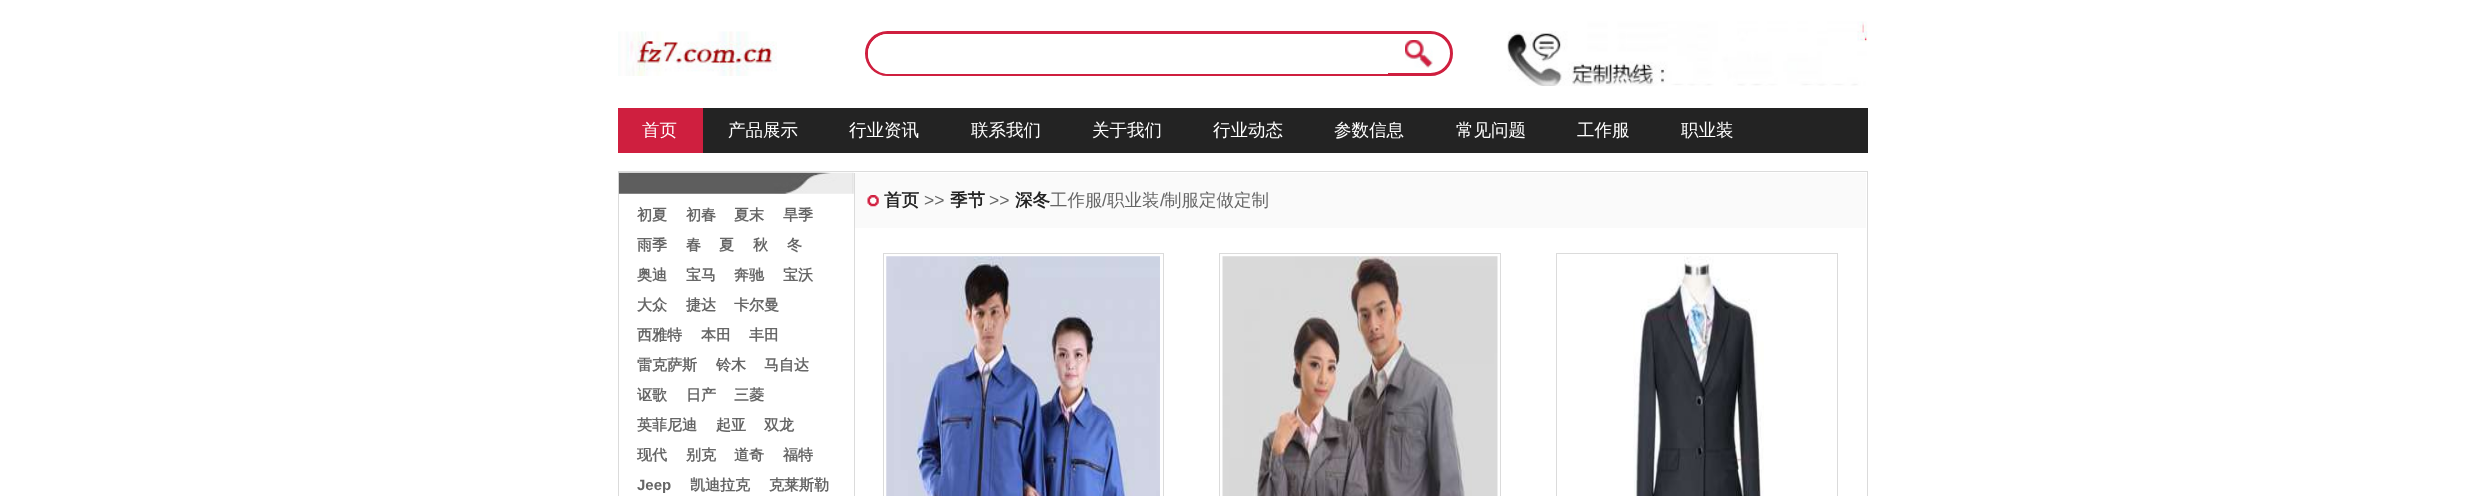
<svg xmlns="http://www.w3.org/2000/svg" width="2483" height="496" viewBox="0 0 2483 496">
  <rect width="100%" height="100%" fill="#ffffff"/>
  <image x="618" y="31" width="159" height="45" href="img1.png"/>
  <rect x="866.5" y="32.5" width="585" height="42" rx="21" fill="none" stroke="#cf1f3f" stroke-width="3"/>
  <path d="M888 34H1388V74H888C877 74 868 65 868 54C868 43 877 34 888 34Z" fill="#ffffff"/>
  <image x="1405" y="40" width="28" height="28" href="img2.png"/>
  <image x="1507" y="21" width="361" height="65" href="img3.png"/>
  <rect x="703" y="108" width="1165" height="45" fill="#232323"/>
  <rect x="618" y="108" width="85" height="45" fill="#cf1f3f"/>
  <text x="642" y="136" font-family="WenQuanYi Zen Hei" font-size="17.5" font-weight="500" fill="#ffffff">首页</text>
  <text x="728" y="136" font-family="WenQuanYi Zen Hei" font-size="17.5" font-weight="500" fill="#ffffff">产品展示</text>
  <text x="849" y="136" font-family="WenQuanYi Zen Hei" font-size="17.5" font-weight="500" fill="#ffffff">行业资讯</text>
  <text x="971" y="136" font-family="WenQuanYi Zen Hei" font-size="17.5" font-weight="500" fill="#ffffff">联系我们</text>
  <text x="1092" y="136" font-family="WenQuanYi Zen Hei" font-size="17.5" font-weight="500" fill="#ffffff">关于我们</text>
  <text x="1213" y="136" font-family="WenQuanYi Zen Hei" font-size="17.5" font-weight="500" fill="#ffffff">行业动态</text>
  <text x="1334" y="136" font-family="WenQuanYi Zen Hei" font-size="17.5" font-weight="500" fill="#ffffff">参数信息</text>
  <text x="1456" y="136" font-family="WenQuanYi Zen Hei" font-size="17.5" font-weight="500" fill="#ffffff">常见问题</text>
  <text x="1577" y="136" font-family="WenQuanYi Zen Hei" font-size="17.5" font-weight="500" fill="#ffffff">工作服</text>
  <text x="1681" y="136" font-family="WenQuanYi Zen Hei" font-size="17.5" font-weight="500" fill="#ffffff">职业装</text>
  <rect x="618.5" y="171.5" width="1249" height="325" fill="none" stroke="#dbdbdb"/>
  <rect x="854" y="173" width="1" height="323" fill="#dbdbdb"/>
  <rect x="855" y="173" width="1011" height="55" fill="#fafafa"/>
  <image x="867" y="195" width="12" height="12" href="img4.png"/>
  <text x="884" y="206" font-family="WenQuanYi Zen Hei" font-size="17.5" font-weight="bold" fill="#232323">首页</text>
  <text x="924" y="206" font-family="Liberation Sans" font-size="17.5" fill="#666666">&gt;&gt;</text>
  <text x="950" y="206" font-family="WenQuanYi Zen Hei" font-size="17.5" font-weight="bold" fill="#232323">季节</text>
  <text x="989" y="206" font-family="Liberation Sans" font-size="17.5" fill="#666666">&gt;&gt;</text>
  <text x="1015" y="206" font-family="WenQuanYi Zen Hei" font-size="17.5" font-weight="bold" fill="#232323">深冬</text>
  <text x="1050" y="206" font-family="WenQuanYi Zen Hei" font-size="17.5" font-weight="500" fill="#666666">工作服</text>
  <text x="1102" y="206" font-family="Liberation Sans" font-size="17.5" fill="#666666">/</text>
  <text x="1107" y="206" font-family="WenQuanYi Zen Hei" font-size="17.5" font-weight="500" fill="#666666">职业装</text>
  <text x="1160" y="206" font-family="Liberation Sans" font-size="17.5" fill="#666666">/</text>
  <text x="1164" y="206" font-family="WenQuanYi Zen Hei" font-size="17.5" font-weight="500" fill="#666666">制服定做定制</text>
  <rect x="883.5" y="253.5" width="280" height="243" fill="none" stroke="#dbdbdb"/>
  <image x="886" y="256" width="274" height="240" href="img5.png"/>
  <rect x="1219.5" y="253.5" width="281" height="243" fill="none" stroke="#dbdbdb"/>
  <image x="1222" y="256" width="276" height="240" href="img6.png"/>
  <rect x="1556.5" y="253.5" width="281" height="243" fill="none" stroke="#dbdbdb"/>
  <image x="1633" y="256" width="131" height="240" href="img7.png"/>
  <image x="618" y="172" width="236" height="22" href="img8.png"/>
  <text x="637" y="220" font-family="WenQuanYi Zen Hei" font-size="15" font-weight="bold" fill="#666666">初夏</text>
  <text x="686" y="220" font-family="WenQuanYi Zen Hei" font-size="15" font-weight="bold" fill="#666666">初春</text>
  <text x="734" y="220" font-family="WenQuanYi Zen Hei" font-size="15" font-weight="bold" fill="#666666">夏末</text>
  <text x="783" y="220" font-family="WenQuanYi Zen Hei" font-size="15" font-weight="bold" fill="#666666">旱季</text>
  <text x="637" y="250" font-family="WenQuanYi Zen Hei" font-size="15" font-weight="bold" fill="#666666">雨季</text>
  <text x="686" y="250" font-family="WenQuanYi Zen Hei" font-size="15" font-weight="bold" fill="#666666">春</text>
  <text x="719" y="250" font-family="WenQuanYi Zen Hei" font-size="15" font-weight="bold" fill="#666666">夏</text>
  <text x="753" y="250" font-family="WenQuanYi Zen Hei" font-size="15" font-weight="bold" fill="#666666">秋</text>
  <text x="787" y="250" font-family="WenQuanYi Zen Hei" font-size="15" font-weight="bold" fill="#666666">冬</text>
  <text x="637" y="280" font-family="WenQuanYi Zen Hei" font-size="15" font-weight="bold" fill="#666666">奥迪</text>
  <text x="686" y="280" font-family="WenQuanYi Zen Hei" font-size="15" font-weight="bold" fill="#666666">宝马</text>
  <text x="734" y="280" font-family="WenQuanYi Zen Hei" font-size="15" font-weight="bold" fill="#666666">奔驰</text>
  <text x="783" y="280" font-family="WenQuanYi Zen Hei" font-size="15" font-weight="bold" fill="#666666">宝沃</text>
  <text x="637" y="310" font-family="WenQuanYi Zen Hei" font-size="15" font-weight="bold" fill="#666666">大众</text>
  <text x="686" y="310" font-family="WenQuanYi Zen Hei" font-size="15" font-weight="bold" fill="#666666">捷达</text>
  <text x="734" y="310" font-family="WenQuanYi Zen Hei" font-size="15" font-weight="bold" fill="#666666">卡尔曼</text>
  <text x="637" y="340" font-family="WenQuanYi Zen Hei" font-size="15" font-weight="bold" fill="#666666">西雅特</text>
  <text x="701" y="340" font-family="WenQuanYi Zen Hei" font-size="15" font-weight="bold" fill="#666666">本田</text>
  <text x="749" y="340" font-family="WenQuanYi Zen Hei" font-size="15" font-weight="bold" fill="#666666">丰田</text>
  <text x="637" y="370" font-family="WenQuanYi Zen Hei" font-size="15" font-weight="bold" fill="#666666">雷克萨斯</text>
  <text x="716" y="370" font-family="WenQuanYi Zen Hei" font-size="15" font-weight="bold" fill="#666666">铃木</text>
  <text x="764" y="370" font-family="WenQuanYi Zen Hei" font-size="15" font-weight="bold" fill="#666666">马自达</text>
  <text x="637" y="400" font-family="WenQuanYi Zen Hei" font-size="15" font-weight="bold" fill="#666666">讴歌</text>
  <text x="686" y="400" font-family="WenQuanYi Zen Hei" font-size="15" font-weight="bold" fill="#666666">日产</text>
  <text x="734" y="400" font-family="WenQuanYi Zen Hei" font-size="15" font-weight="bold" fill="#666666">三菱</text>
  <text x="637" y="430" font-family="WenQuanYi Zen Hei" font-size="15" font-weight="bold" fill="#666666">英菲尼迪</text>
  <text x="716" y="430" font-family="WenQuanYi Zen Hei" font-size="15" font-weight="bold" fill="#666666">起亚</text>
  <text x="764" y="430" font-family="WenQuanYi Zen Hei" font-size="15" font-weight="bold" fill="#666666">双龙</text>
  <text x="637" y="460" font-family="WenQuanYi Zen Hei" font-size="15" font-weight="bold" fill="#666666">现代</text>
  <text x="686" y="460" font-family="WenQuanYi Zen Hei" font-size="15" font-weight="bold" fill="#666666">别克</text>
  <text x="734" y="460" font-family="WenQuanYi Zen Hei" font-size="15" font-weight="bold" fill="#666666">道奇</text>
  <text x="783" y="460" font-family="WenQuanYi Zen Hei" font-size="15" font-weight="bold" fill="#666666">福特</text>
  <text x="637" y="490" font-family="Liberation Sans" font-size="15" font-weight="bold" fill="#666666">Jeep</text>
  <text x="690" y="490" font-family="WenQuanYi Zen Hei" font-size="15" font-weight="bold" fill="#666666">凯迪拉克</text>
  <text x="769" y="490" font-family="WenQuanYi Zen Hei" font-size="15" font-weight="bold" fill="#666666">克莱斯勒</text>
</svg>
